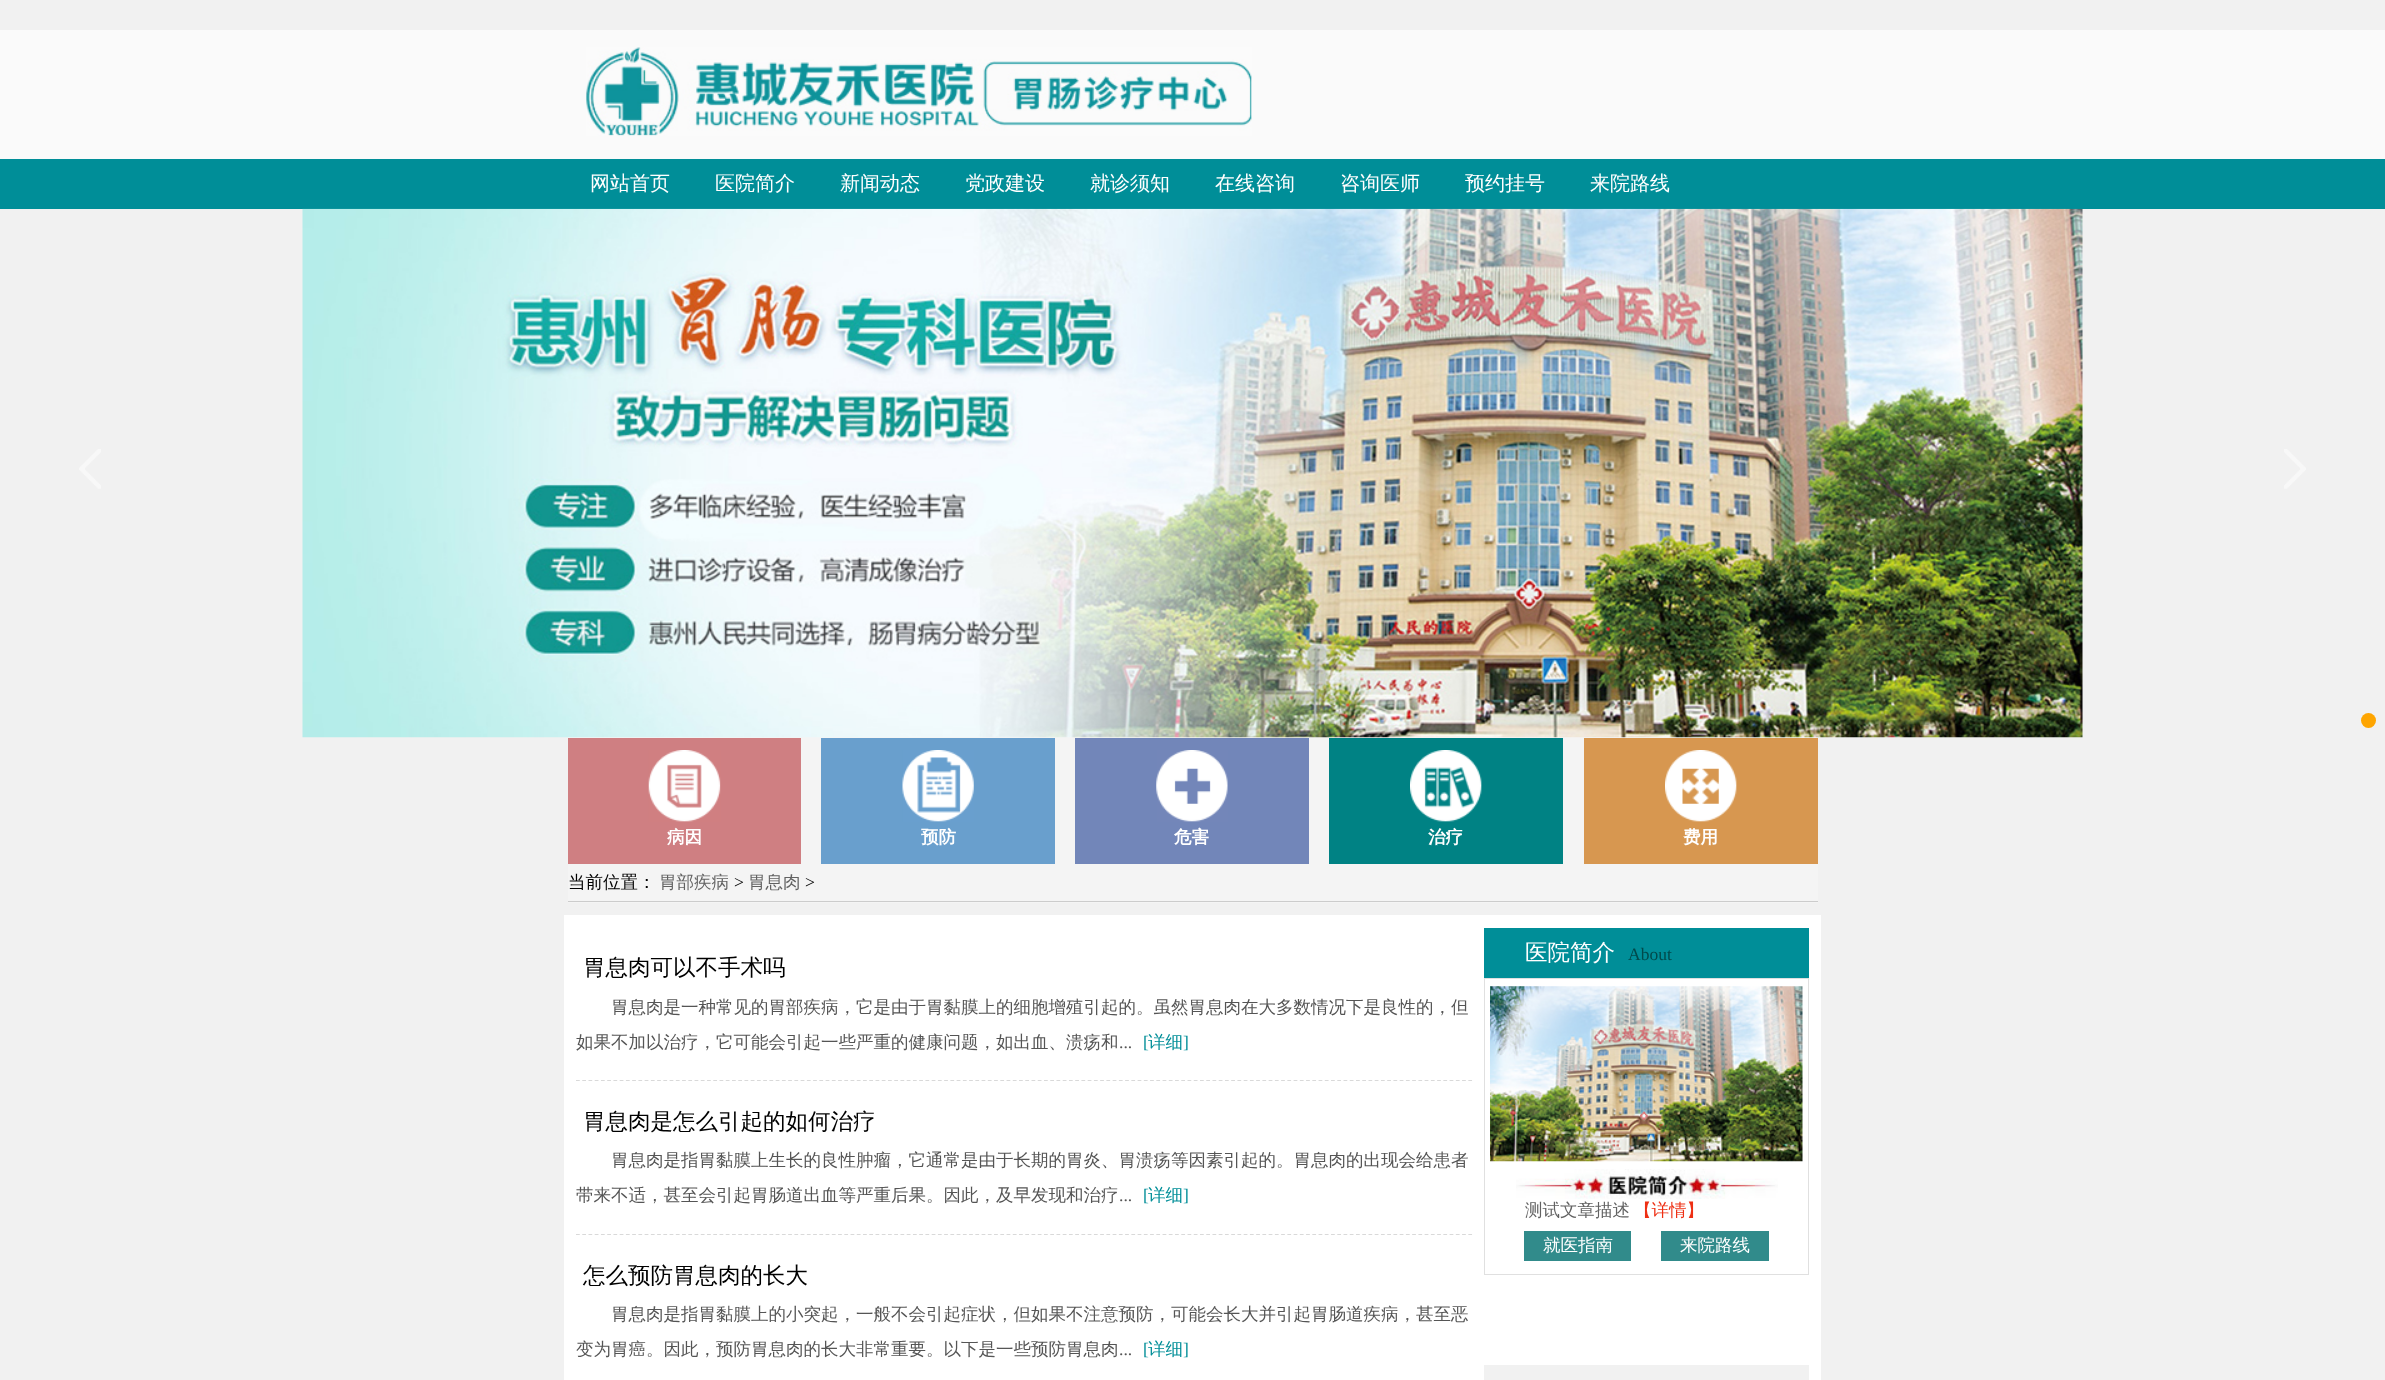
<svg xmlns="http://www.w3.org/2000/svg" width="2385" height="1380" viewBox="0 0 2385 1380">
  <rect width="100%" height="100%" fill="#f1f1f1"/>
  <rect x="0" y="30" width="2385" height="129" fill="#fafafa"/>
  <image x="586" y="47" width="666" height="89" href="img1.png"/>
  <rect x="0" y="159" width="2385" height="50" fill="#008e98"/>
  <text x="590" y="190" font-family="WenQuanYi Zen Hei" font-size="20" font-weight="500" fill="#ffffff">网站首页</text>
  <text x="715" y="190" font-family="WenQuanYi Zen Hei" font-size="20" font-weight="500" fill="#ffffff">医院简介</text>
  <text x="840" y="190" font-family="WenQuanYi Zen Hei" font-size="20" font-weight="500" fill="#ffffff">新闻动态</text>
  <text x="965" y="190" font-family="WenQuanYi Zen Hei" font-size="20" font-weight="500" fill="#ffffff">党政建设</text>
  <text x="1090" y="190" font-family="WenQuanYi Zen Hei" font-size="20" font-weight="500" fill="#ffffff">就诊须知</text>
  <text x="1215" y="190" font-family="WenQuanYi Zen Hei" font-size="20" font-weight="500" fill="#ffffff">在线咨询</text>
  <text x="1340" y="190" font-family="WenQuanYi Zen Hei" font-size="20" font-weight="500" fill="#ffffff">咨询医师</text>
  <text x="1465" y="190" font-family="WenQuanYi Zen Hei" font-size="20" font-weight="500" fill="#ffffff">预约挂号</text>
  <text x="1590" y="190" font-family="WenQuanYi Zen Hei" font-size="20" font-weight="500" fill="#ffffff">来院路线</text>
  <image x="79" y="449" width="22" height="40" href="img2.png"/>
  <rect x="568" y="737" width="1250" height="166" fill="#f4f4f4"/>
  <image x="302" y="208" width="1781" height="530" href="img3.png"/>
  <image x="2284" y="449" width="22" height="40" href="img4.png"/>
  <circle cx="2368.5" cy="720.5" r="7.5" fill="#fea501"/>
  <rect x="568" y="738" width="233" height="126" fill="#cf7f82"/>
  <image x="648" y="750" width="73" height="72" href="img5.png"/>
  <text x="667" y="843" font-family="WenQuanYi Zen Hei" font-size="17.5" font-weight="bold" fill="#ffffff">病因</text>
  <rect x="821" y="738" width="234" height="126" fill="#699fcd"/>
  <image x="902" y="750" width="72" height="72" href="img6.png"/>
  <text x="921" y="843" font-family="WenQuanYi Zen Hei" font-size="17.5" font-weight="bold" fill="#ffffff">预防</text>
  <rect x="1075" y="738" width="234" height="126" fill="#7286b9"/>
  <image x="1156" y="750" width="72" height="72" href="img7.png"/>
  <text x="1174" y="843" font-family="WenQuanYi Zen Hei" font-size="17.5" font-weight="bold" fill="#ffffff">危害</text>
  <rect x="1329" y="738" width="234" height="126" fill="#008284"/>
  <image x="1410" y="750" width="72" height="72" href="img8.png"/>
  <text x="1428" y="843" font-family="WenQuanYi Zen Hei" font-size="17.5" font-weight="bold" fill="#ffffff">治疗</text>
  <rect x="1584" y="738" width="234" height="126" fill="#d79750"/>
  <image x="1665" y="750" width="72" height="72" href="img9.png"/>
  <text x="1683" y="843" font-family="WenQuanYi Zen Hei" font-size="17.5" font-weight="bold" fill="#ffffff">费用</text>
  <rect x="568" y="901" width="1250" height="1" fill="#cccccc"/>
  <text x="568" y="888" font-family="WenQuanYi Zen Hei" font-size="17.5" font-weight="500" fill="#000000">当前位置：</text>
  <text x="659" y="888" font-family="WenQuanYi Zen Hei" font-size="17.5" font-weight="500" fill="#626262">胃部疾病</text>
  <text x="734" y="888" font-family="Liberation Serif" font-size="17.5" fill="#000000">&gt;</text>
  <text x="748" y="888" font-family="WenQuanYi Zen Hei" font-size="17.5" font-weight="500" fill="#626262">胃息肉</text>
  <text x="805" y="888" font-family="Liberation Serif" font-size="17.5" fill="#000000">&gt;</text>
  <rect x="564" y="915" width="1257" height="465" fill="#ffffff"/>
  <path d="M576 1080.5H1472.5" fill="none" stroke="#d9d9d9" stroke-width="1.2" stroke-dasharray="3.75 2.49"/>
  <text x="583" y="975" font-family="WenQuanYi Zen Hei" font-size="22.5" font-weight="500" fill="#000000">胃息肉可以不手术吗</text>
  <text x="611" y="1013" font-family="WenQuanYi Zen Hei" font-size="17.5" font-weight="500" fill="#555555">胃息肉是一种常见的胃部疾病，它是由于胃黏膜上的细胞增殖引起的。虽然胃息肉在大多数情况下是良性的，但</text>
  <text x="576" y="1048" font-family="WenQuanYi Zen Hei" font-size="17.5" font-weight="500" fill="#555555">如果不加以治疗，它可能会引起一些严重的健康问题，如出血、溃疡和</text>
  <text x="1119" y="1048" font-family="Liberation Serif" font-size="17.5" fill="#555555">...</text>
  <text x="1143" y="1048" font-family="Liberation Serif" font-size="17.5" fill="#008e98">[</text>
  <text x="1148" y="1048" font-family="WenQuanYi Zen Hei" font-size="17.5" font-weight="500" fill="#008e98">详细</text>
  <text x="1183" y="1048" font-family="Liberation Serif" font-size="17.5" fill="#008e98">]</text>
  <path d="M576 1234.5H1472.5" fill="none" stroke="#d9d9d9" stroke-width="1.2" stroke-dasharray="3.75 2.49"/>
  <text x="583" y="1129" font-family="WenQuanYi Zen Hei" font-size="22.5" font-weight="500" fill="#000000">胃息肉是怎么引起的如何治疗</text>
  <text x="611" y="1166" font-family="WenQuanYi Zen Hei" font-size="17.5" font-weight="500" fill="#555555">胃息肉是指胃黏膜上生长的良性肿瘤，它通常是由于长期的胃炎、胃溃疡等因素引起的。胃息肉的出现会给患者</text>
  <text x="576" y="1201" font-family="WenQuanYi Zen Hei" font-size="17.5" font-weight="500" fill="#555555">带来不适，甚至会引起胃肠道出血等严重后果。因此，及早发现和治疗</text>
  <text x="1119" y="1201" font-family="Liberation Serif" font-size="17.5" fill="#555555">...</text>
  <text x="1143" y="1201" font-family="Liberation Serif" font-size="17.5" fill="#008e98">[</text>
  <text x="1148" y="1201" font-family="WenQuanYi Zen Hei" font-size="17.5" font-weight="500" fill="#008e98">详细</text>
  <text x="1183" y="1201" font-family="Liberation Serif" font-size="17.5" fill="#008e98">]</text>
  <text x="583" y="1283" font-family="WenQuanYi Zen Hei" font-size="22.5" font-weight="500" fill="#000000">怎么预防胃息肉的长大</text>
  <text x="611" y="1320" font-family="WenQuanYi Zen Hei" font-size="17.5" font-weight="500" fill="#555555">胃息肉是指胃黏膜上的小突起，一般不会引起症状，但如果不注意预防，可能会长大并引起胃肠道疾病，甚至恶</text>
  <text x="576" y="1355" font-family="WenQuanYi Zen Hei" font-size="17.5" font-weight="500" fill="#555555">变为胃癌。因此，预防胃息肉的长大非常重要。以下是一些预防胃息肉</text>
  <text x="1119" y="1355" font-family="Liberation Serif" font-size="17.5" fill="#555555">...</text>
  <text x="1143" y="1355" font-family="Liberation Serif" font-size="17.5" fill="#008e98">[</text>
  <text x="1148" y="1355" font-family="WenQuanYi Zen Hei" font-size="17.5" font-weight="500" fill="#008e98">详细</text>
  <text x="1183" y="1355" font-family="Liberation Serif" font-size="17.5" fill="#008e98">]</text>
  <rect x="1484" y="928" width="325" height="50" fill="#008e98"/>
  <text x="1525" y="960" font-family="WenQuanYi Zen Hei" font-size="22.5" font-weight="500" fill="#ffffff">医院简介</text>
  <text x="1628" y="960" font-family="Liberation Serif" font-size="17.5" fill="#004a4b">About</text>
  <rect x="1484.5" y="978.5" width="324" height="296" fill="none" stroke="#e0e0e0"/>
  <image x="1490" y="986" width="313" height="176" href="img10.png"/>
  <image x="1516" y="1169" width="262" height="30" href="img11.png"/>
  <text x="1525" y="1216" font-family="WenQuanYi Zen Hei" font-size="17.5" font-weight="500" fill="#626262">测试文章描述</text>
  <text x="1634" y="1216" font-family="WenQuanYi Zen Hei" font-size="17.5" font-weight="500" fill="#ee2f13">【详情】</text>
  <rect x="1524" y="1231" width="107" height="30" fill="#318b8b"/>
  <text x="1543" y="1251" font-family="WenQuanYi Zen Hei" font-size="17.5" font-weight="500" fill="#ffffff">就医指南</text>
  <rect x="1661" y="1231" width="108" height="30" fill="#318b8b"/>
  <text x="1680" y="1251" font-family="WenQuanYi Zen Hei" font-size="17.5" font-weight="500" fill="#ffffff">来院路线</text>
  <rect x="1484" y="1365" width="325" height="15" fill="#f1f1f1"/>
</svg>
